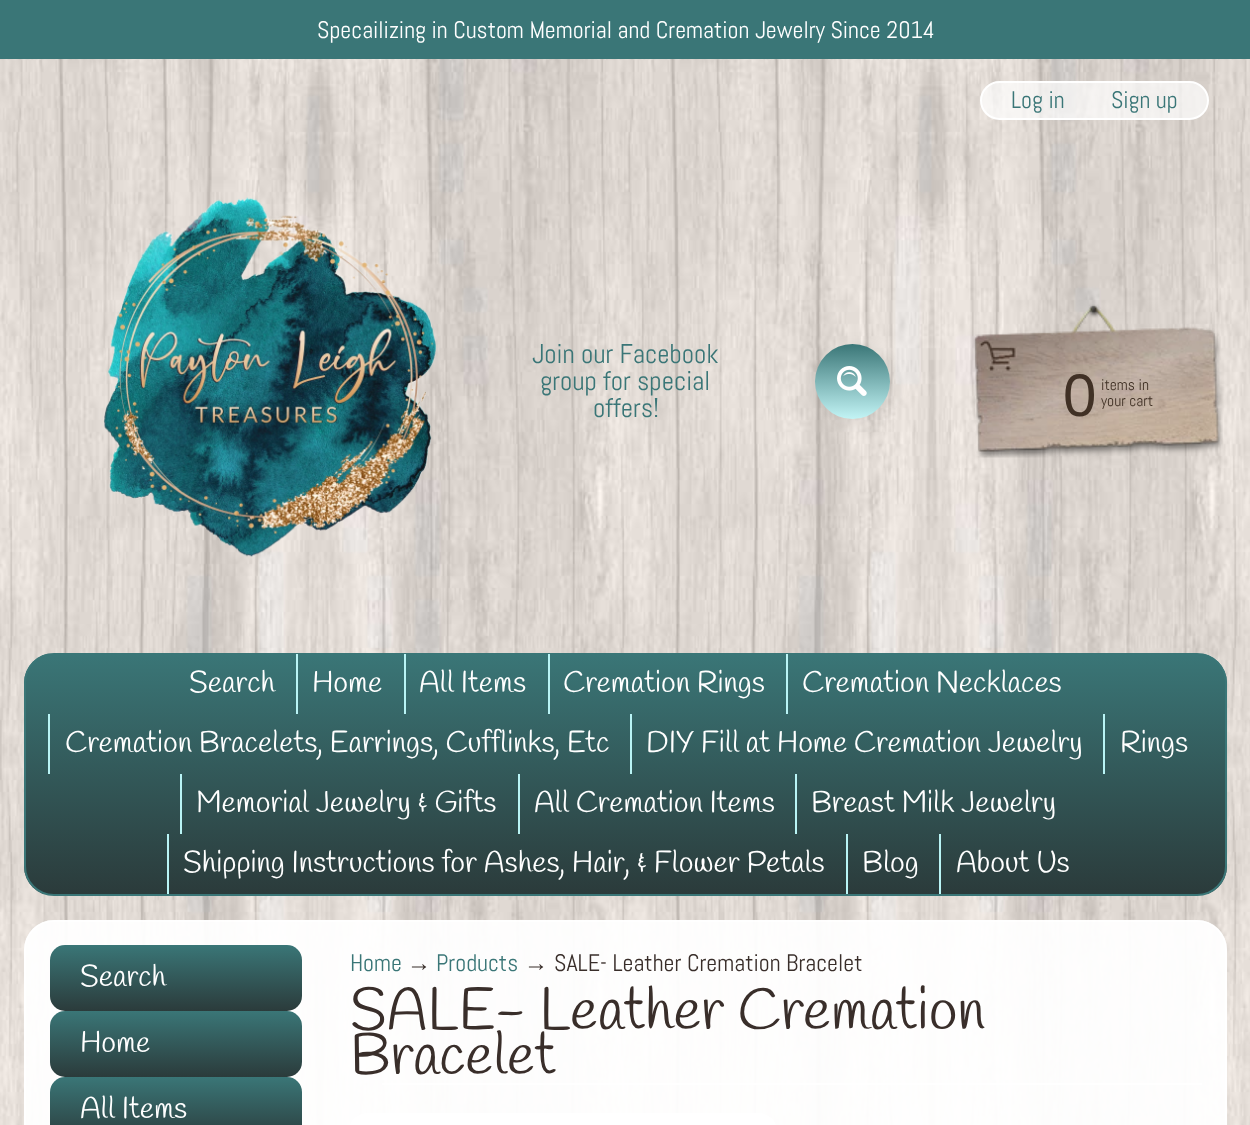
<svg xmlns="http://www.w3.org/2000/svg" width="1250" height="1125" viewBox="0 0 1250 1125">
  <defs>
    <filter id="blur1" x="-50%" y="-200%" width="200%" height="500%"><feGaussianBlur stdDeviation="9"/></filter>
    <linearGradient id="g1" gradientUnits="userSpaceOnUse" x1="852" y1="344" x2="852" y2="419"><stop offset="0" stop-color="#3a7677"/><stop offset="1" stop-color="#c2f4f5"/></linearGradient>
    <clipPath id="clip1"><rect x="24" y="653" width="1203" height="243" rx="30"/></clipPath>
    <linearGradient id="g2" gradientUnits="userSpaceOnUse" x1="626" y1="654" x2="626" y2="894"><stop offset="0" stop-color="#3a7677"/><stop offset="1" stop-color="#2b3b3b"/></linearGradient>
    <linearGradient id="g3" gradientUnits="userSpaceOnUse" x1="176" y1="945" x2="176" y2="1011"><stop offset="0" stop-color="#3a7677"/><stop offset="1" stop-color="#2b3b3b"/></linearGradient>
    <linearGradient id="g4" gradientUnits="userSpaceOnUse" x1="176" y1="1011" x2="176" y2="1077"><stop offset="0" stop-color="#3a7677"/><stop offset="1" stop-color="#2b3b3b"/></linearGradient>
    <linearGradient id="g5" gradientUnits="userSpaceOnUse" x1="176" y1="1077" x2="176" y2="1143"><stop offset="0" stop-color="#3a7677"/><stop offset="1" stop-color="#2b3b3b"/></linearGradient>
  </defs>
  <rect width="100%" height="100%" fill="#ffffff"/>
  <image x="0" y="59" width="1250" height="1066" href="img1.png"/>
  <rect x="0" y="0" width="1250" height="59" fill="#3a7677"/>
  <text x="317" y="38" font-family="Abel" font-size="24" fill="#ffffff">Specailizing in Custom Memorial and Cremation Jewelry Since 2014</text>
  <image x="103" y="197" width="334" height="360" href="img2.png"/>
  <text x="532" y="363" font-family="Abel" font-size="27" fill="#3a7677">Join our Facebook</text>
  <text x="540" y="390" font-family="Abel" font-size="27" fill="#3a7677">group for special</text>
  <text x="593" y="417" font-family="Abel" font-size="27" fill="#3a7677">offers!</text>
  <rect x="981" y="82" width="227" height="37" rx="18.5" fill="#ffffff" fill-opacity="0.7" stroke="#ffffff" stroke-width="2"/>
  <text x="1011" y="108" font-family="Abel" font-size="24" fill="#3a7677">Log in</text>
  <text x="1111" y="108" font-family="Abel" font-size="24" fill="#3a7677">Sign up</text>
  <rect x="819" y="348" width="75" height="75" rx="37.5" fill="#000000" fill-opacity="0.1" filter="url(#blur1)"/>
  <circle cx="852.5" cy="381.5" r="37.5" fill="url(#g1)"/>
  <image x="837" y="366" width="30" height="30" href="img3.png"/>
  <image x="972" y="304" width="251" height="154" href="img4.png"/>
  <text x="1063" y="416" font-family="Liberation Sans" font-size="60" fill="#403125">0</text>
  <text x="1101" y="390" font-family="Abel" font-size="15.5" fill="#403125">items in</text>
  <text x="1101" y="406" font-family="Abel" font-size="15.5" fill="#403125">your cart</text>
  <g clip-path="url(#clip1)">
    <rect x="24" y="654" width="1203" height="240" fill="url(#g2)"/>
  </g>
  <rect x="25" y="654" width="1201" height="241" rx="29" fill="none" stroke="#3a7677" stroke-width="2"/>
  <text x="189" y="692" font-family="Handlee" font-size="30" fill="#ffffff">Search</text>
  <rect x="296" y="654" width="2" height="60" fill="#b9f4f5"/>
  <text x="312" y="692" font-family="Handlee" font-size="30" fill="#ffffff">Home</text>
  <rect x="404" y="654" width="2" height="60" fill="#b9f4f5"/>
  <text x="419" y="692" font-family="Handlee" font-size="30" fill="#ffffff">All Items</text>
  <rect x="548" y="654" width="2" height="60" fill="#b9f4f5"/>
  <text x="563" y="692" font-family="Handlee" font-size="30" fill="#ffffff">Cremation Rings</text>
  <rect x="786" y="654" width="2" height="60" fill="#b9f4f5"/>
  <text x="802" y="692" font-family="Handlee" font-size="30" fill="#ffffff">Cremation Necklaces</text>
  <rect x="48" y="714" width="2" height="60" fill="#b9f4f5"/>
  <text x="65" y="752" font-family="Handlee" font-size="30" fill="#ffffff">Cremation Bracelets, Earrings, Cufflinks, Etc</text>
  <rect x="630" y="714" width="2" height="60" fill="#b9f4f5"/>
  <text x="646" y="752" font-family="Handlee" font-size="30" fill="#ffffff">DIY Fill at Home Cremation Jewelry</text>
  <rect x="1103" y="714" width="2" height="60" fill="#b9f4f5"/>
  <text x="1120" y="752" font-family="Handlee" font-size="30" fill="#ffffff">Rings</text>
  <rect x="180" y="774" width="2" height="60" fill="#b9f4f5"/>
  <text x="196" y="812" font-family="Handlee" font-size="30" fill="#ffffff">Memorial Jewelry &amp; Gifts</text>
  <rect x="518" y="774" width="2" height="60" fill="#b9f4f5"/>
  <text x="534" y="812" font-family="Handlee" font-size="30" fill="#ffffff">All Cremation Items</text>
  <rect x="795" y="774" width="2" height="60" fill="#b9f4f5"/>
  <text x="811" y="812" font-family="Handlee" font-size="30" fill="#ffffff">Breast Milk Jewelry</text>
  <rect x="167" y="834" width="2" height="60" fill="#b9f4f5"/>
  <text x="183" y="872" font-family="Handlee" font-size="30" fill="#ffffff">Shipping Instructions for Ashes, Hair, &amp; Flower Petals</text>
  <rect x="846" y="834" width="2" height="60" fill="#b9f4f5"/>
  <text x="862" y="872" font-family="Handlee" font-size="30" fill="#ffffff">Blog</text>
  <rect x="939" y="834" width="2" height="60" fill="#b9f4f5"/>
  <text x="956" y="872" font-family="Handlee" font-size="30" fill="#ffffff">About Us</text>
  <rect x="24" y="920" width="1203" height="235" rx="30" fill="#ffffff" fill-opacity="0.95"/>
  <rect x="25" y="921" width="1201" height="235" rx="29" fill="none" stroke="#ffffff" stroke-opacity="0.7" stroke-width="2"/>
  <rect x="50" y="945" width="252" height="66" rx="15" fill="url(#g3)"/>
  <text x="80" y="986" font-family="Handlee" font-size="30" fill="#ffffff">Search</text>
  <rect x="50" y="1011" width="252" height="66" rx="15" fill="url(#g4)"/>
  <text x="80" y="1052" font-family="Handlee" font-size="30" fill="#ffffff">Home</text>
  <rect x="50" y="1077" width="252" height="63" rx="15" fill="url(#g5)"/>
  <text x="80" y="1118" font-family="Handlee" font-size="30" fill="#ffffff">All Items</text>
  <text x="350" y="971" font-family="Abel" font-size="24" fill="#3a7677">Home</text>
  <text x="407" y="971" font-family="Liberation Sans" font-size="24" fill="#392e2a">→</text>
  <text x="436" y="971" font-family="Abel" font-size="24" fill="#3a7677">Products</text>
  <text x="524" y="971" font-family="Liberation Sans" font-size="24" fill="#392e2a">→</text>
  <text x="554" y="971" font-family="Abel" font-size="24" fill="#392e2a">SALE- Leather Cremation Bracelet</text>
  <rect x="382" y="1083" width="820" height="2" fill="#ffffff"/>
  <text x="350" y="1029" font-family="Handlee" font-size="58.5" fill="#392e2a">SALE- Leather Cremation</text>
  <text x="350" y="1074" font-family="Handlee" font-size="58.5" fill="#392e2a">Bracelet</text>
  <rect x="350" y="1113" width="426" height="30" rx="18" fill="#ffffff"/>
</svg>
